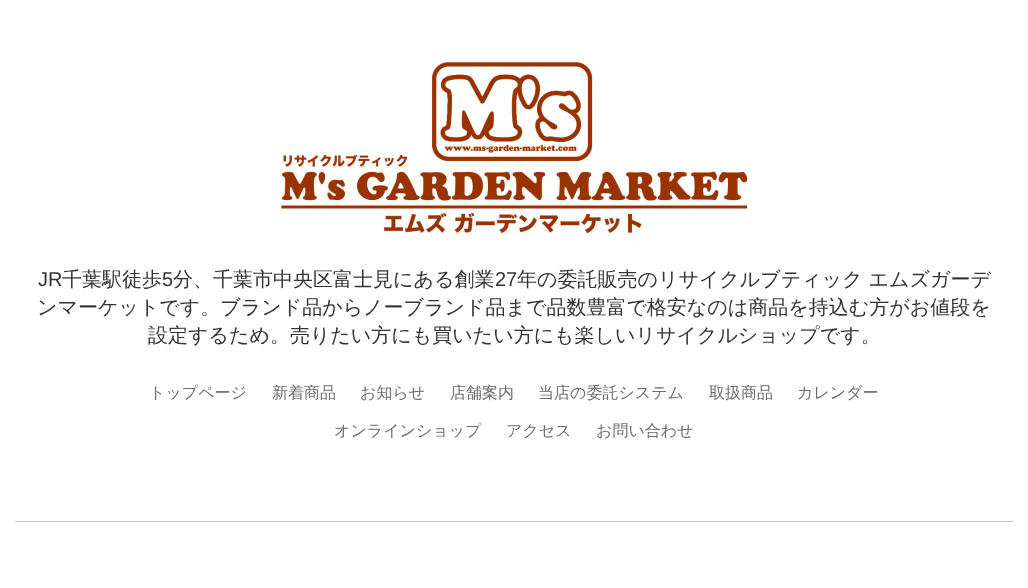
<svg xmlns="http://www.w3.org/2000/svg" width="1028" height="588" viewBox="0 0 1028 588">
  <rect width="100%" height="100%" fill="#ffffff"/>
  <rect x="15" y="521" width="998" height="1" fill="#c6c6c6"/>
  <image x="281" y="62" width="467" height="172" href="img1.png"/>
  <text x="38" y="286" font-family="Liberation Sans" font-size="20" fill="#333333">JR</text>
  <text x="62" y="286" font-family="WenQuanYi Zen Hei" font-size="20" font-weight="500" fill="#333333">千葉駅徒歩</text>
  <text x="162" y="286" font-family="Liberation Sans" font-size="20" fill="#333333">5</text>
  <text x="173" y="286" font-family="WenQuanYi Zen Hei" font-size="20" font-weight="500" fill="#333333">分、千葉市中央区富士見にある創業</text>
  <text x="495" y="286" font-family="Liberation Sans" font-size="20" fill="#333333">27</text>
  <text x="517" y="286" font-family="WenQuanYi Zen Hei" font-size="20" font-weight="500" fill="#333333">年の委託販売のリサイクルブティック エムズガーデ</text>
  <text x="37" y="314" font-family="WenQuanYi Zen Hei" font-size="20" font-weight="500" fill="#333333">ンマーケットです。ブランド品からノーブランド品まで品数豊富で格安なのは商品を持込む方がお値段を</text>
  <text x="148" y="342" font-family="WenQuanYi Zen Hei" font-size="20" font-weight="500" fill="#333333">設定するため。売りたい方にも買いたい方にも楽しいリサイクルショップです。</text>
  <text x="149" y="398" font-family="WenQuanYi Zen Hei" font-size="16" font-weight="500" fill="#6d6d6d">トップページ</text>
  <text x="272" y="398" font-family="WenQuanYi Zen Hei" font-size="16" font-weight="500" fill="#6d6d6d">新着商品</text>
  <text x="360" y="398" font-family="WenQuanYi Zen Hei" font-size="16" font-weight="500" fill="#6d6d6d">お知らせ</text>
  <text x="450" y="398" font-family="WenQuanYi Zen Hei" font-size="16" font-weight="500" fill="#6d6d6d">店舗案内</text>
  <text x="538" y="398" font-family="WenQuanYi Zen Hei" font-size="16" font-weight="500" fill="#6d6d6d">当店の委託システム</text>
  <text x="709" y="398" font-family="WenQuanYi Zen Hei" font-size="16" font-weight="500" fill="#6d6d6d">取扱商品</text>
  <text x="797" y="398" font-family="WenQuanYi Zen Hei" font-size="16" font-weight="500" fill="#6d6d6d">カレンダー</text>
  <text x="334" y="436" font-family="WenQuanYi Zen Hei" font-size="16" font-weight="500" fill="#6d6d6d">オンラインショップ</text>
  <text x="506" y="436" font-family="WenQuanYi Zen Hei" font-size="16" font-weight="500" fill="#6d6d6d">アクセス</text>
  <text x="596" y="436" font-family="WenQuanYi Zen Hei" font-size="16" font-weight="500" fill="#6d6d6d">お問い合わせ</text>
</svg>
